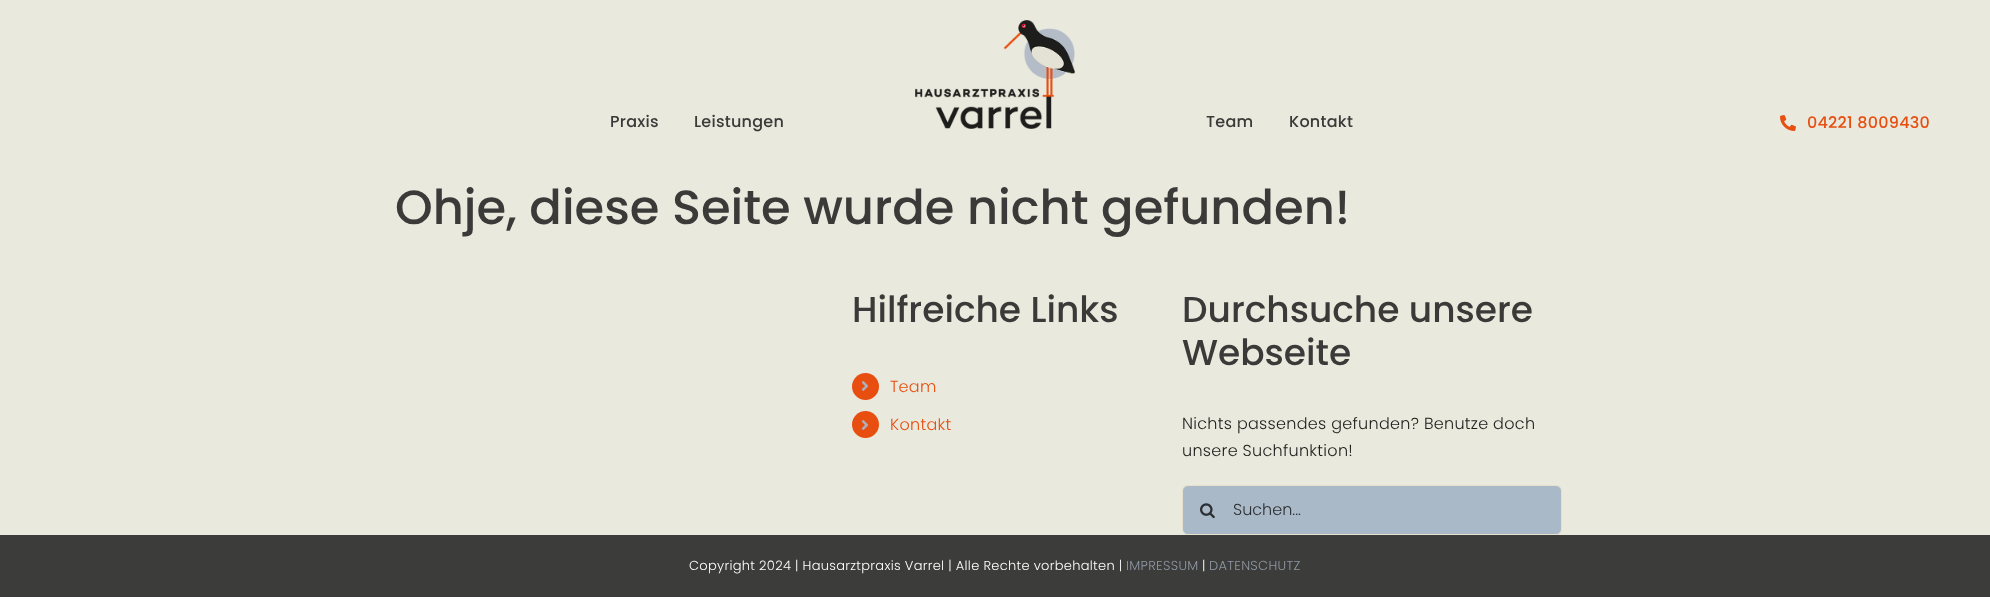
<svg xmlns="http://www.w3.org/2000/svg" width="1990" height="604" viewBox="0 0 1990 604">
  <rect width="100%" height="100%" fill="#ffffff"/>
  <rect x="0" y="0" width="1990" height="535" fill="#e9e9de"/>
  <text x="610" y="127" font-family="Poppins" font-size="16" font-weight="500" letter-spacing="0.25" fill="#3a3a38">Praxis</text>
  <text x="694" y="127" font-family="Poppins" font-size="16" font-weight="500" letter-spacing="0.25" fill="#3a3a38">Leistungen</text>
  <image x="915" y="20" width="160" height="109" href="img1.png"/>
  <text x="1206" y="127" font-family="Poppins" font-size="16" font-weight="500" letter-spacing="0.25" fill="#3a3a38">Team</text>
  <text x="1289" y="127" font-family="Poppins" font-size="16" font-weight="500" letter-spacing="0.25" fill="#3a3a38">Kontakt</text>
  <image x="1780" y="115" width="16" height="16" href="img2.png"/>
  <text x="1807" y="128" font-family="Poppins" font-size="16" font-weight="500" letter-spacing="0.25" fill="#e84e0f">04221 8009430</text>
  <text x="395" y="224" font-family="Poppins" font-size="48" font-weight="500" fill="#3a3a38">Ohje, diese Seite wurde nicht gefunden!</text>
  <text x="852" y="322" font-family="Poppins" font-size="36" font-weight="500" fill="#3a3a38">Hilfreiche Links</text>
  <circle cx="865.5" cy="386.5" r="13.5" fill="#e84e0f"/>
  <image x="861" y="381" width="8" height="10" href="img3.png"/>
  <text x="890" y="392" font-family="Poppins" font-size="16" font-weight="300" letter-spacing="0.3" fill="#e84e0f">Team</text>
  <circle cx="865.5" cy="424.5" r="13.5" fill="#e84e0f"/>
  <image x="861" y="420" width="8" height="10" href="img3.png"/>
  <text x="890" y="430" font-family="Poppins" font-size="16" font-weight="300" letter-spacing="0.3" fill="#e84e0f">Kontakt</text>
  <text x="1182" y="322" font-family="Poppins" font-size="36" font-weight="500" fill="#3a3a38">Durchsuche unsere</text>
  <text x="1182" y="365" font-family="Poppins" font-size="36" font-weight="500" fill="#3a3a38">Webseite</text>
  <text x="1182" y="429" font-family="Poppins" font-size="16" font-weight="300" letter-spacing="0.3" fill="#1d1d1b">Nichts passendes gefunden? Benutze doch</text>
  <text x="1182" y="456" font-family="Poppins" font-size="16" font-weight="300" letter-spacing="0.3" fill="#1d1d1b">unsere Suchfunktion!</text>
  <rect x="1182.5" y="485.5" width="379" height="49" rx="5.5" fill="#aab9c7" stroke="#e5e1cd"/>
  <image x="1200" y="503" width="15" height="16" href="img4.png"/>
  <text x="1233" y="515" font-family="Poppins" font-size="16" font-weight="300" fill="#2b2e32">Suchen...</text>
  <rect x="0" y="535" width="1990" height="62" fill="#3c3c3a"/>
  <text x="689" y="570" font-family="Poppins" font-size="13" font-weight="300" letter-spacing="0.3" fill="#ffffff">Copyright 2024 | Hausarztpraxis Varrel | Alle Rechte vorbehalten |</text>
  <text x="1126" y="570" font-family="Poppins" font-size="13" font-weight="300" letter-spacing="0.3" fill="#8e98a4">IMPRESSUM</text>
  <text x="1202" y="570" font-family="Poppins" font-size="13" font-weight="300" letter-spacing="0.3" fill="#ffffff">|</text>
  <text x="1209" y="570" font-family="Poppins" font-size="13" font-weight="300" letter-spacing="0.3" fill="#8e98a4">DATENSCHUTZ</text>
</svg>
